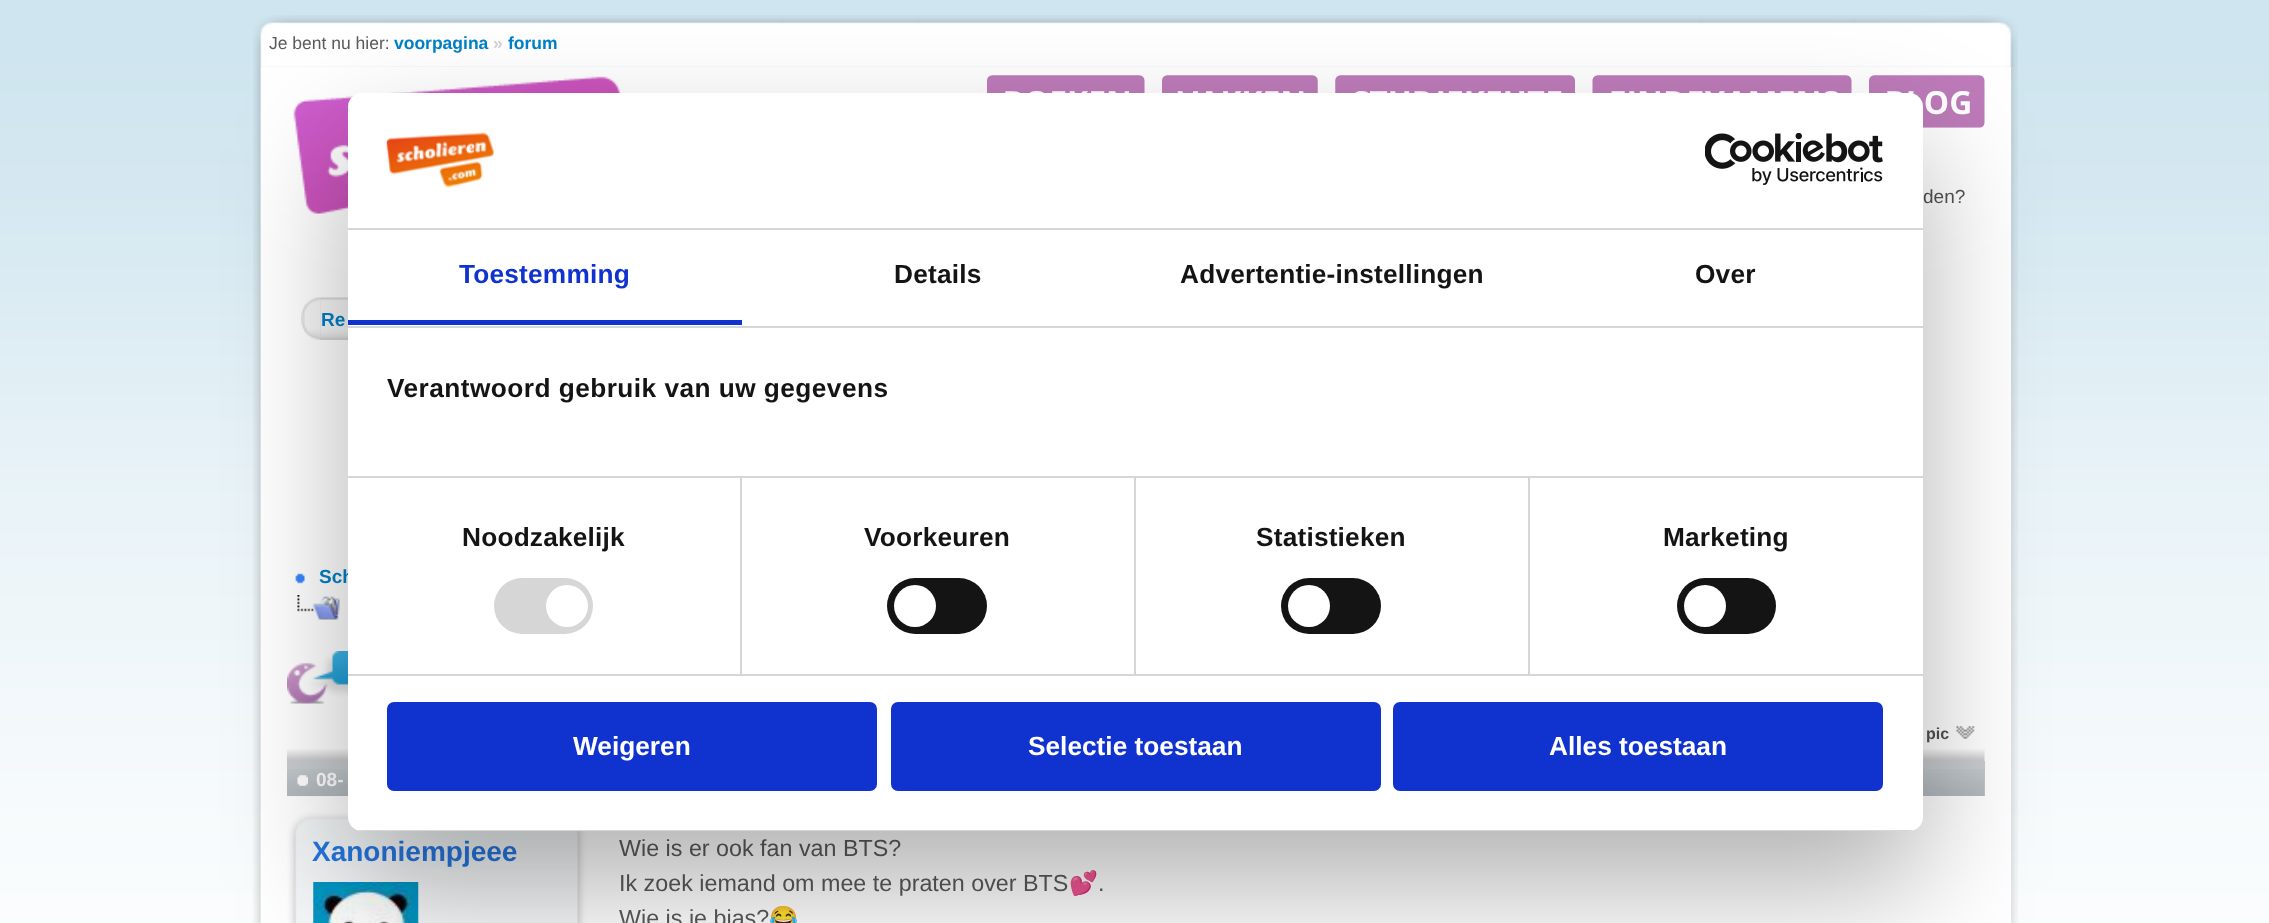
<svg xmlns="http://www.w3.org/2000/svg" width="2269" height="923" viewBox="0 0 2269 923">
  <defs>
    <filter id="blur1" x="-50%" y="-200%" width="200%" height="500%"><feGaussianBlur stdDeviation="59.5"/></filter>
    <clipPath id="clip1"><rect x="348" y="93" width="1575" height="738" rx="14"/></clipPath>
  </defs>
  <rect width="100%" height="100%" fill="#ffffff"/>
  <image x="0" y="0" width="2269" height="923" href="img1.png"/>
  <image x="253" y="15" width="1765" height="52" href="img2.png"/>
  <text x="269" y="49" font-family="Liberation Sans" font-size="17.5" fill="#5a5a5a">Je bent nu hier:</text>
  <text x="394" y="49" font-family="Liberation Sans" font-size="17.5" font-weight="bold" fill="#0080c9">voorpagina</text>
  <text x="493" y="49" font-family="Liberation Sans" font-size="17.5" font-weight="bold" fill="#d2d2d2">»</text>
  <text x="508" y="49" font-family="Liberation Sans" font-size="17.5" font-weight="bold" fill="#0080c9">forum</text>
  <image x="253" y="66" width="1765" height="857" href="img3.png"/>
  <rect x="261" y="67" width="1750" height="856" fill="#ffffff"/>
  <image x="293" y="66" width="340" height="188" href="img4.png"/>
  <image x="986" y="75" width="999" height="53" href="img5.png"/>
  <text x="1923" y="203" font-family="Liberation Sans" font-size="19" fill="#515151">den?</text>
  <image x="301" y="297" width="19" height="43" href="img6.png"/>
  <rect x="320" y="298" width="28" height="42" fill="#d5d5d5"/>
  <image x="320" y="297" width="28" height="41" href="img7.png"/>
  <text x="321" y="326" font-family="Liberation Sans" font-size="19" font-weight="bold" fill="#0080c9">Re</text>
  <image x="295" y="573" width="10" height="11" href="img8.png"/>
  <text x="319" y="583" font-family="Liberation Sans" font-size="19" font-weight="bold" fill="#0080c9">Sch</text>
  <image x="297" y="595" width="43" height="25" href="img9.png"/>
  <image x="287" y="651" width="61" height="53" href="img10.png"/>
  <image x="1923" y="749" width="62" height="12" href="img11.png"/>
  <text x="1926" y="739" font-family="Liberation Sans" font-size="16" font-weight="bold" fill="#515151">pic</text>
  <image x="1956" y="726" width="19" height="13" href="img12.png"/>
  <image x="287" y="749" width="61" height="12" href="img13.png"/>
  <rect x="287" y="761" width="1698" height="35" fill="#c7ccd0"/>
  <image x="287" y="769" width="1698" height="28" href="img14.png"/>
  <image x="297" y="775" width="11" height="11" href="img15.png"/>
  <text x="316" y="786" font-family="Liberation Sans" font-size="19" font-weight="bold" fill="#ffffff">08-</text>
  <image x="287" y="796" width="301" height="127" href="img16.png"/>
  <text x="312" y="861" font-family="Liberation Sans" font-size="28" font-weight="bold" fill="#2476e1">Xanoniempjeee</text>
  <image x="313" y="882" width="106" height="41" href="img17.png"/>
  <rect x="611" y="796" width="1374" height="1" fill="#ffffff"/>
  <text x="619" y="856" font-family="Liberation Sans" font-size="23.3" fill="#5a5a5a">Wie is er ook fan van BTS?</text>
  <text x="619" y="891" font-family="Liberation Sans" font-size="23.3" fill="#5a5a5a">Ik zoek iemand om mee te praten over BTS</text>
  <text x="1069" y="891" font-family="Noto Color Emoji" font-size="23.3" fill="#5a5a5a">💕</text>
  <text x="1098" y="891" font-family="Liberation Sans" font-size="23.3" fill="#5a5a5a">.</text>
  <text x="619" y="926" font-family="Liberation Sans" font-size="23.3" fill="#5a5a5a">Wie is je bias?</text>
  <text x="769" y="926" font-family="Noto Color Emoji" font-size="23.3" fill="#5a5a5a">😂</text>
  <rect x="348" y="149" width="1575" height="738" rx="14" fill="#000000" fill-opacity="0.3" filter="url(#blur1)"/>
  <rect x="348" y="93" width="1575" height="738" rx="14" fill="#ffffff"/>
  <rect x="348" y="228" width="1575" height="2" fill="#d6d6d6"/>
  <image x="386" y="132" width="108" height="56" href="img18.png"/>
  <image x="1705" y="133" width="178" height="52" href="img19.png"/>
  <rect x="348" y="326" width="1575" height="2" fill="#d6d6d6"/>
  <rect x="348" y="320" width="394" height="5" fill="#1032cf"/>
  <text x="459" y="283" font-family="Liberation Sans" font-size="26.25" font-weight="bold" letter-spacing="0.2" fill="#1032cf">Toestemming</text>
  <text x="894" y="283" font-family="Liberation Sans" font-size="26.25" font-weight="bold" letter-spacing="0.2" fill="#141414">Details</text>
  <text x="1180" y="283" font-family="Liberation Sans" font-size="26.25" font-weight="bold" letter-spacing="0.2" fill="#141414">Advertentie-instellingen</text>
  <text x="1695" y="283" font-family="Liberation Sans" font-size="26.25" font-weight="bold" letter-spacing="0.2" fill="#141414">Over</text>
  <rect x="348" y="476" width="1575" height="2" fill="#d6d6d6"/>
  <text x="387" y="397" font-family="Liberation Sans" font-size="26.25" font-weight="bold" letter-spacing="0.45" fill="#141414">Verantwoord gebruik van uw gegevens</text>
  <rect x="348" y="674" width="1575" height="2" fill="#d6d6d6"/>
  <rect x="740" y="478" width="2" height="196" fill="#d6d6d6"/>
  <text x="462" y="546" font-family="Liberation Sans" font-size="26.25" font-weight="bold" letter-spacing="0.2" fill="#141414">Noodzakelijk</text>
  <rect x="494" y="578" width="99" height="56" rx="28" fill="#d6d6d6"/>
  <circle cx="567" cy="606" r="21" fill="#ffffff"/>
  <rect x="1134" y="478" width="2" height="196" fill="#d6d6d6"/>
  <text x="864" y="546" font-family="Liberation Sans" font-size="26.25" font-weight="bold" letter-spacing="0.2" fill="#141414">Voorkeuren</text>
  <rect x="887" y="578" width="100" height="56" rx="28" fill="#141414"/>
  <circle cx="915" cy="606" r="21" fill="#ffffff"/>
  <rect x="1528" y="478" width="2" height="196" fill="#d6d6d6"/>
  <text x="1256" y="546" font-family="Liberation Sans" font-size="26.25" font-weight="bold" letter-spacing="0.2" fill="#141414">Statistieken</text>
  <rect x="1281" y="578" width="100" height="56" rx="28" fill="#141414"/>
  <circle cx="1309" cy="606" r="21" fill="#ffffff"/>
  <text x="1663" y="546" font-family="Liberation Sans" font-size="26.25" font-weight="bold" letter-spacing="0.2" fill="#141414">Marketing</text>
  <rect x="1677" y="578" width="99" height="56" rx="28" fill="#141414"/>
  <circle cx="1705" cy="606" r="21" fill="#ffffff"/>
  <g clip-path="url(#clip1)">
    <rect x="357" y="830" width="1557" height="1" fill="#d6d6d6"/>
  </g>
  <rect x="389" y="704" width="486" height="85" rx="5" fill="#1032cf" stroke="#1032cf" stroke-width="4"/>
  <text x="573" y="755" font-family="Liberation Sans" font-size="26.25" font-weight="bold" fill="#ffffff">Weigeren</text>
  <rect x="893" y="704" width="486" height="85" rx="5" fill="#1032cf" stroke="#1032cf" stroke-width="4"/>
  <text x="1028" y="755" font-family="Liberation Sans" font-size="26.25" font-weight="bold" fill="#ffffff">Selectie toestaan</text>
  <rect x="1395" y="704" width="486" height="85" rx="5" fill="#1032cf" stroke="#1032cf" stroke-width="4"/>
  <text x="1549" y="755" font-family="Liberation Sans" font-size="26.25" font-weight="bold" fill="#ffffff">Alles toestaan</text>
</svg>
